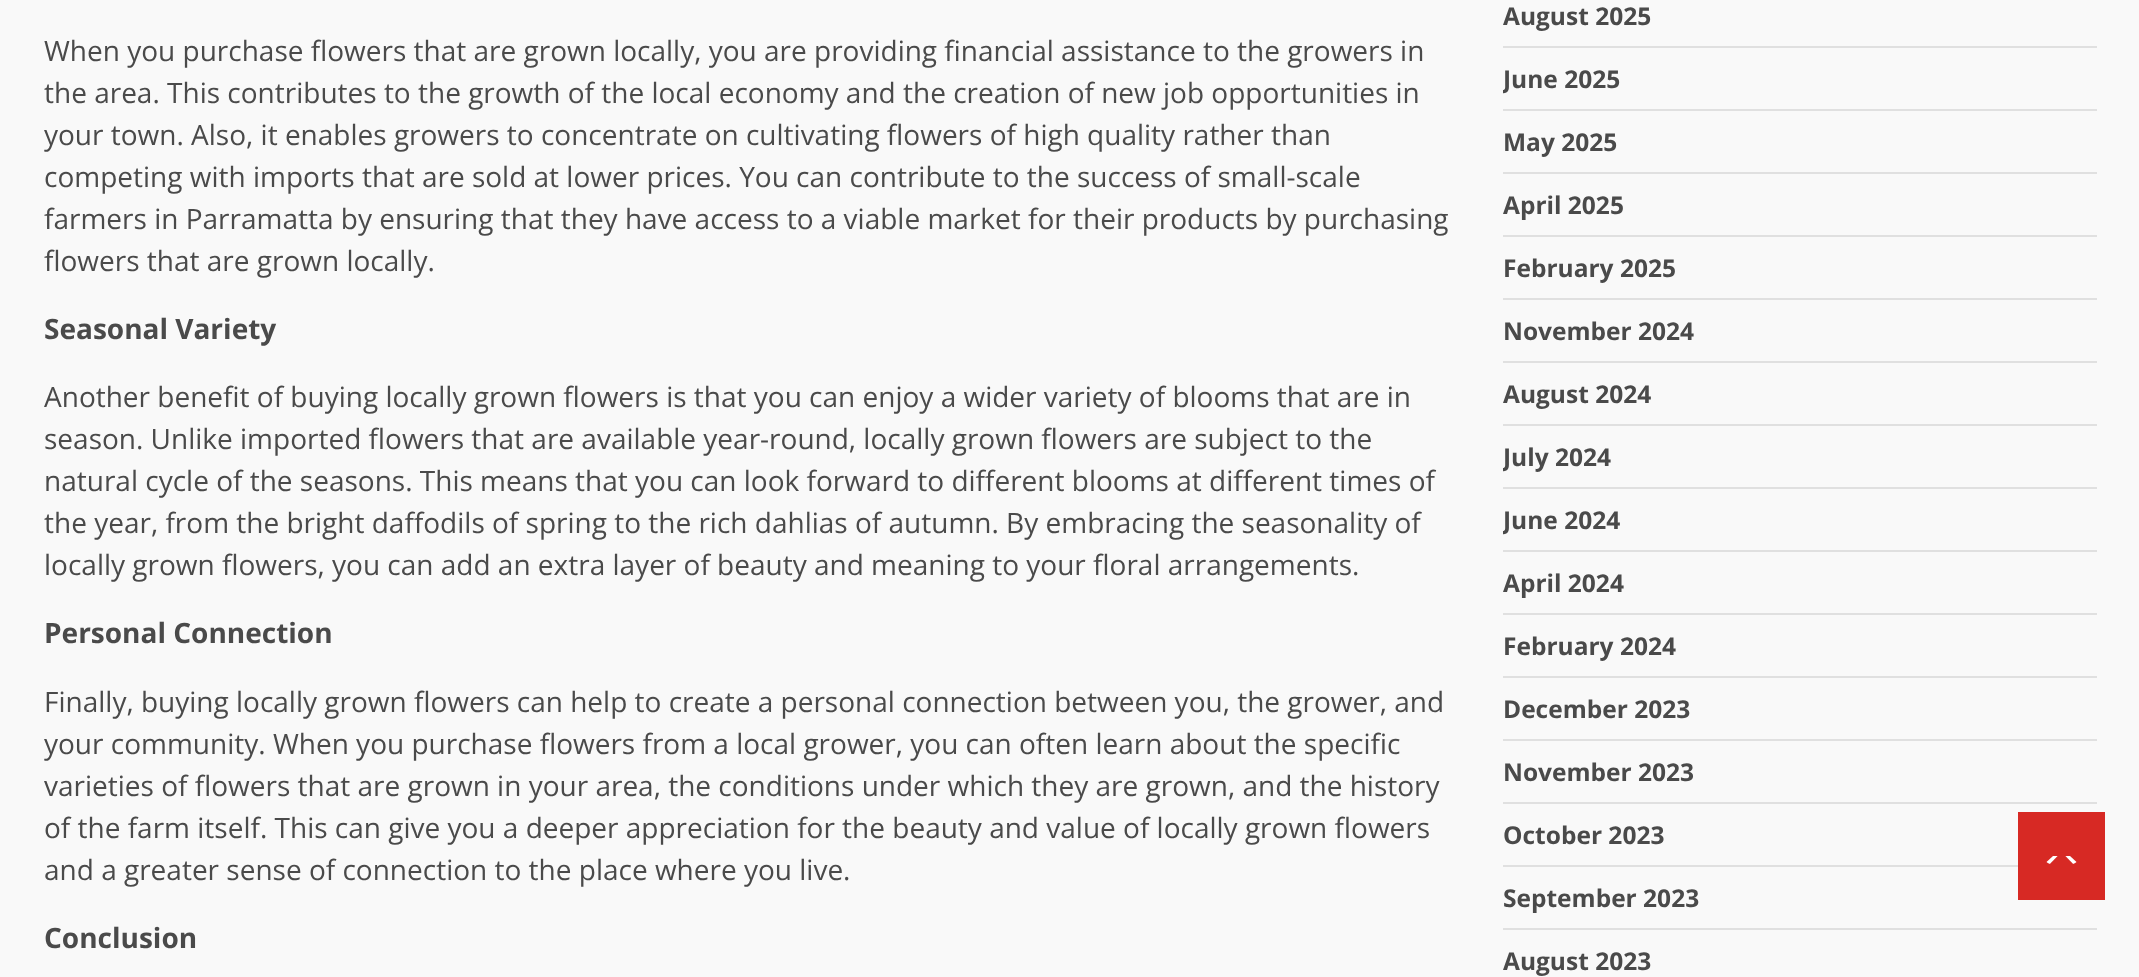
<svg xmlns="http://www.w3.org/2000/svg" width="2139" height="977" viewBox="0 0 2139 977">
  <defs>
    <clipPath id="clip1"><rect x="1503" y="0" width="594" height="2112"/></clipPath>
  </defs>
  <rect width="100%" height="100%" fill="#f9f9f9"/>
  <text x="44" y="61" font-family="Open Sans" font-size="28" fill="#4a4a4a">When you purchase flowers that are grown locally, you are providing financial assistance to the growers in</text>
  <text x="44" y="103" font-family="Open Sans" font-size="28" fill="#4a4a4a">the area. This contributes to the growth of the local economy and the creation of new job opportunities in</text>
  <text x="44" y="145" font-family="Open Sans" font-size="28" fill="#4a4a4a">your town. Also, it enables growers to concentrate on cultivating flowers of high quality rather than</text>
  <text x="44" y="187" font-family="Open Sans" font-size="28" fill="#4a4a4a">competing with imports that are sold at lower prices. You can contribute to the success of small-scale</text>
  <text x="44" y="229" font-family="Open Sans" font-size="28" fill="#4a4a4a">farmers in Parramatta by ensuring that they have access to a viable market for their products by purchasing</text>
  <text x="44" y="271" font-family="Open Sans" font-size="28" fill="#4a4a4a">flowers that are grown locally.</text>
  <text x="44" y="339" font-family="Open Sans" font-size="28" font-weight="bold" fill="#4a4a4a">Seasonal Variety</text>
  <text x="44" y="407" font-family="Open Sans" font-size="28" fill="#4a4a4a">Another benefit of buying locally grown flowers is that you can enjoy a wider variety of blooms that are in</text>
  <text x="44" y="449" font-family="Open Sans" font-size="28" fill="#4a4a4a">season. Unlike imported flowers that are available year-round, locally grown flowers are subject to the</text>
  <text x="44" y="491" font-family="Open Sans" font-size="28" fill="#4a4a4a">natural cycle of the seasons. This means that you can look forward to different blooms at different times of</text>
  <text x="44" y="533" font-family="Open Sans" font-size="28" fill="#4a4a4a">the year, from the bright daffodils of spring to the rich dahlias of autumn. By embracing the seasonality of</text>
  <text x="44" y="575" font-family="Open Sans" font-size="28" fill="#4a4a4a">locally grown flowers, you can add an extra layer of beauty and meaning to your floral arrangements.</text>
  <text x="44" y="643" font-family="Open Sans" font-size="28" font-weight="bold" fill="#4a4a4a">Personal Connection</text>
  <text x="44" y="712" font-family="Open Sans" font-size="28" fill="#4a4a4a">Finally, buying locally grown flowers can help to create a personal connection between you, the grower, and</text>
  <text x="44" y="754" font-family="Open Sans" font-size="28" fill="#4a4a4a">your community. When you purchase flowers from a local grower, you can often learn about the specific</text>
  <text x="44" y="796" font-family="Open Sans" font-size="28" fill="#4a4a4a">varieties of flowers that are grown in your area, the conditions under which they are grown, and the history</text>
  <text x="44" y="838" font-family="Open Sans" font-size="28" fill="#4a4a4a">of the farm itself. This can give you a deeper appreciation for the beauty and value of locally grown flowers</text>
  <text x="44" y="880" font-family="Open Sans" font-size="28" fill="#4a4a4a">and a greater sense of connection to the place where you live.</text>
  <text x="44" y="948" font-family="Open Sans" font-size="28" font-weight="bold" fill="#4a4a4a">Conclusion</text>
  <rect x="1503" y="46" width="594" height="2" fill="#e0e0e0"/>
  <text x="1503" y="25" font-family="Open Sans" font-size="24.5" font-weight="bold" fill="#4a4a4a">August 2025</text>
  <rect x="1503" y="109" width="594" height="2" fill="#e0e0e0"/>
  <g clip-path="url(#clip1)">
    <text x="1503" y="88" font-family="Open Sans" font-size="24.5" font-weight="bold" fill="#4a4a4a">June 2025</text>
  </g>
  <rect x="1503" y="172" width="594" height="2" fill="#e0e0e0"/>
  <text x="1503" y="151" font-family="Open Sans" font-size="24.5" font-weight="bold" fill="#4a4a4a">May 2025</text>
  <rect x="1503" y="235" width="594" height="2" fill="#e0e0e0"/>
  <text x="1503" y="214" font-family="Open Sans" font-size="24.5" font-weight="bold" fill="#4a4a4a">April 2025</text>
  <rect x="1503" y="298" width="594" height="2" fill="#e0e0e0"/>
  <text x="1503" y="277" font-family="Open Sans" font-size="24.5" font-weight="bold" fill="#4a4a4a">February 2025</text>
  <rect x="1503" y="361" width="594" height="2" fill="#e0e0e0"/>
  <text x="1503" y="340" font-family="Open Sans" font-size="24.5" font-weight="bold" fill="#4a4a4a">November 2024</text>
  <rect x="1503" y="424" width="594" height="2" fill="#e0e0e0"/>
  <text x="1503" y="403" font-family="Open Sans" font-size="24.5" font-weight="bold" fill="#4a4a4a">August 2024</text>
  <rect x="1503" y="487" width="594" height="2" fill="#e0e0e0"/>
  <g clip-path="url(#clip1)">
    <text x="1503" y="466" font-family="Open Sans" font-size="24.5" font-weight="bold" fill="#4a4a4a">July 2024</text>
  </g>
  <rect x="1503" y="550" width="594" height="2" fill="#e0e0e0"/>
  <g clip-path="url(#clip1)">
    <text x="1503" y="529" font-family="Open Sans" font-size="24.5" font-weight="bold" fill="#4a4a4a">June 2024</text>
  </g>
  <rect x="1503" y="613" width="594" height="2" fill="#e0e0e0"/>
  <text x="1503" y="592" font-family="Open Sans" font-size="24.5" font-weight="bold" fill="#4a4a4a">April 2024</text>
  <rect x="1503" y="676" width="594" height="2" fill="#e0e0e0"/>
  <text x="1503" y="655" font-family="Open Sans" font-size="24.5" font-weight="bold" fill="#4a4a4a">February 2024</text>
  <rect x="1503" y="739" width="594" height="2" fill="#e0e0e0"/>
  <text x="1503" y="718" font-family="Open Sans" font-size="24.5" font-weight="bold" fill="#4a4a4a">December 2023</text>
  <rect x="1503" y="802" width="594" height="2" fill="#e0e0e0"/>
  <text x="1503" y="781" font-family="Open Sans" font-size="24.5" font-weight="bold" fill="#4a4a4a">November 2023</text>
  <rect x="1503" y="865" width="515" height="2" fill="#e0e0e0"/>
  <text x="1503" y="844" font-family="Open Sans" font-size="24.5" font-weight="bold" fill="#4a4a4a">October 2023</text>
  <rect x="1503" y="928" width="594" height="2" fill="#e0e0e0"/>
  <text x="1503" y="907" font-family="Open Sans" font-size="24.5" font-weight="bold" fill="#4a4a4a">September 2023</text>
  <text x="1503" y="970" font-family="Open Sans" font-size="24.5" font-weight="bold" fill="#4a4a4a">August 2023</text>
  <rect x="2018" y="812" width="87" height="88" fill="#d72924"/>
  <path d="M2053 864.5H2070C2072.5 864.5 2075 863.5 2076.5 862L2070 856H2053L2046.5 862C2048 863.5 2050.5 864.5 2053 864.5Z" fill="#ffffff"/>
  <path d="M2079 870H2044L2061.5 852Z" fill="#d72924"/>
</svg>
